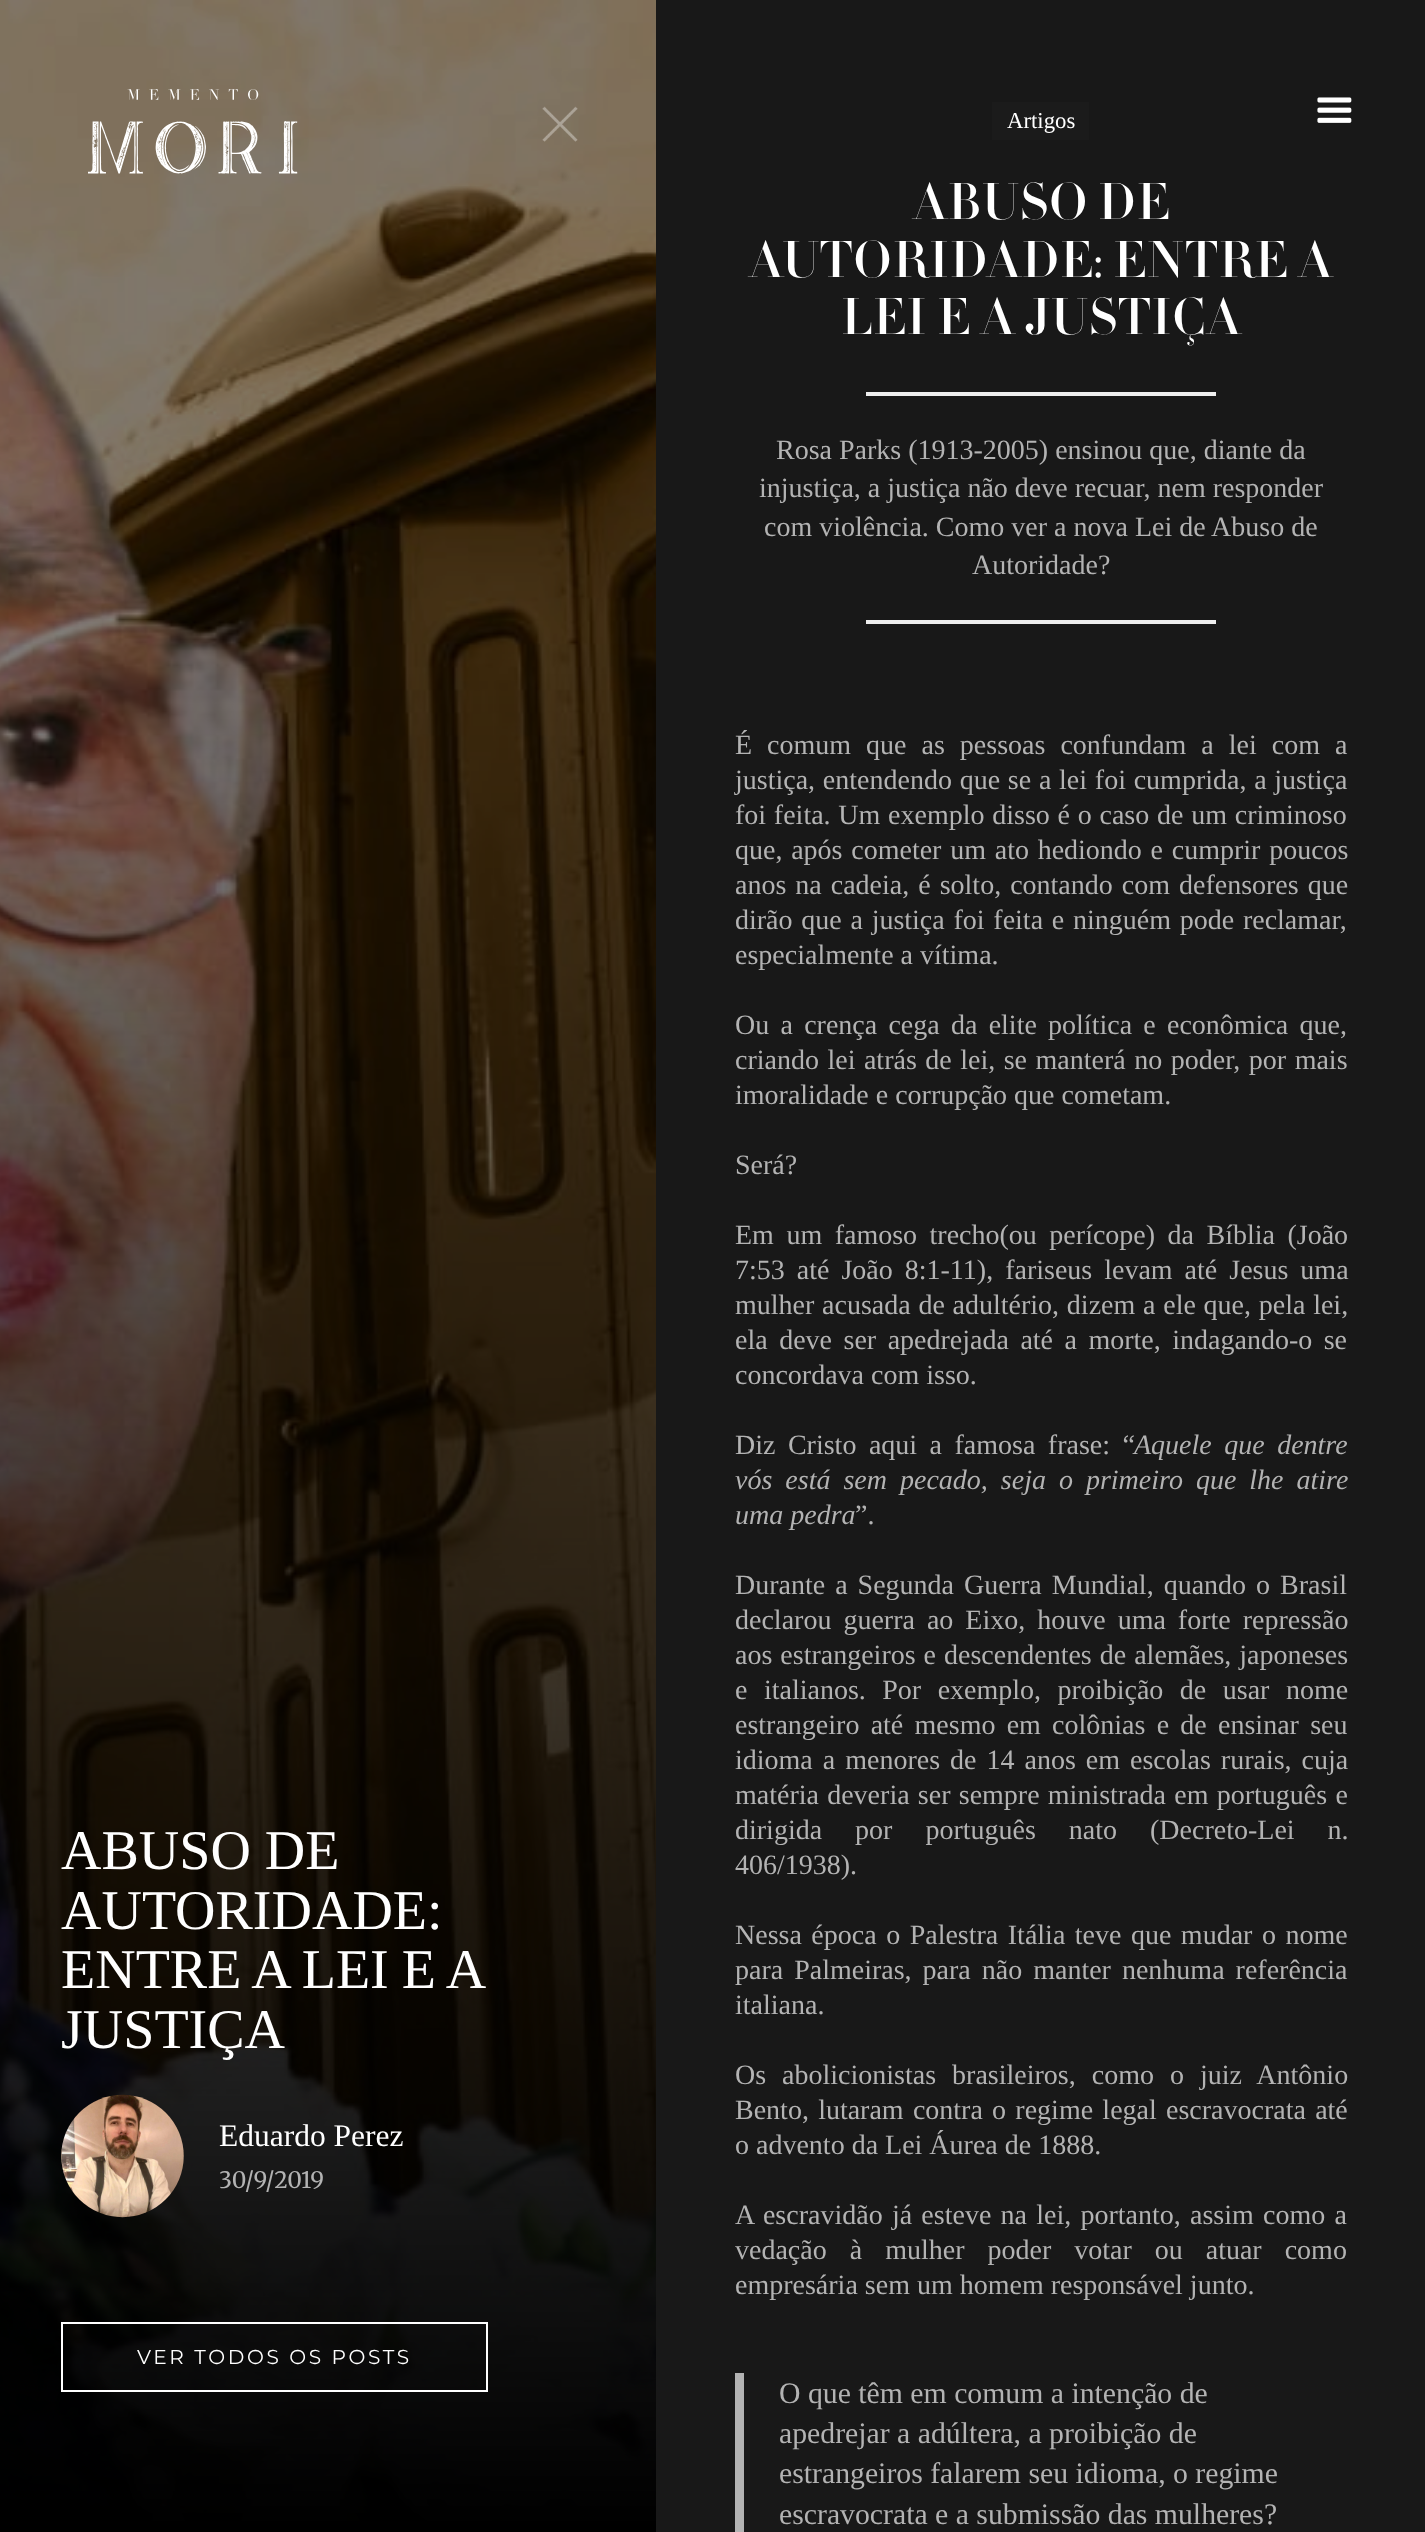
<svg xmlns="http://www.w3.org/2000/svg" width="1425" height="2532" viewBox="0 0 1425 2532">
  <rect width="100%" height="100%" fill="#ffffff"/>
  <image x="0" y="0" width="656" height="2532" href="img3.png"/>
  <image x="88" y="89" width="210" height="85" href="img1.png"/>
  <rect x="656" y="0" width="769" height="2532" fill="#181818"/>
  <image x="1317" y="97" width="35" height="26" href="img2.png"/>
  <image x="542" y="106" width="36" height="36" href="img4.png"/>
  <text x="61" y="1869" font-family="Liberation Serif" font-size="56" fill="#ffffff">ABUSO DE</text>
  <text x="61" y="1929" font-family="Liberation Serif" font-size="56" fill="#ffffff">AUTORIDADE:</text>
  <text x="61" y="1988" word-spacing="-1" font-family="Liberation Serif" font-size="56" fill="#ffffff">ENTRE A LEI E A</text>
  <text x="61" y="2048" font-family="Liberation Serif" font-size="56" fill="#ffffff">JUSTIÇA</text>
  <image x="61" y="2094" width="123" height="124" href="img5.png"/>
  <text x="219" y="2146" font-family="Liberation Serif" font-size="31.5" fill="#ffffff">Eduardo Perez</text>
  <text x="219" y="2188" font-family="Merriweather" font-size="22.75" fill="#b3b3b3">30/9/2019</text>
  <rect x="62" y="2323" width="425" height="68" fill="none" stroke="#ffffff" stroke-width="2"/>
  <text x="137" y="2364" font-family="Montserrat" font-size="20.1" letter-spacing="2.6" fill="#ffffff">VER TODOS OS POSTS</text>
  <rect x="992" y="102" width="97" height="38" fill="#1b1b1b"/>
  <text x="1007" y="128" font-family="Liberation Serif" font-size="22.75" fill="#ffffff">Artigos</text>
  <text x="913" y="219" font-family="Didot" font-size="50.75" font-weight="500" letter-spacing="0.9" fill="#ffffff">ABUSO DE</text>
  <text x="749" y="277" font-family="Didot" font-size="50.75" font-weight="500" letter-spacing="0.9" fill="#ffffff">AUTORIDADE: ENTRE A</text>
  <text x="841" y="334" font-family="Didot" font-size="50.75" font-weight="500" letter-spacing="0.9" fill="#ffffff">LEI E A JUSTIÇA</text>
  <rect x="866" y="392" width="350" height="4" fill="#eeeeee"/>
  <text x="776" y="459" font-family="Liberation Serif" font-size="28" fill="#b3b3b3">Rosa Parks (1913-2005) ensinou que, diante da</text>
  <text x="759" y="497" font-family="Liberation Serif" font-size="28" fill="#b3b3b3">injustiça, a justiça não deve recuar, nem responder</text>
  <text x="764" y="536" font-family="Liberation Serif" font-size="28" fill="#b3b3b3">com violência. Como ver a nova Lei de Abuso de</text>
  <text x="972" y="574" font-family="Liberation Serif" font-size="28" fill="#b3b3b3">Autoridade?</text>
  <rect x="866" y="620" width="350" height="4" fill="#eeeeee"/>
  <text x="735" y="754" word-spacing="8" font-family="Liberation Serif" font-size="28" fill="#b3b3b3">É comum que as pessoas confundam a lei com a</text>
  <text x="735" y="789" word-spacing="0.75" font-family="Liberation Serif" font-size="28" fill="#b3b3b3">justiça, entendendo que se a lei foi cumprida, a justiça</text>
  <text x="735" y="824" word-spacing="0.75" font-family="Liberation Serif" font-size="28" fill="#b3b3b3">foi feita. Um exemplo disso é o caso de um criminoso</text>
  <text x="735" y="859" word-spacing="1.75" font-family="Liberation Serif" font-size="28" fill="#b3b3b3">que, após cometer um ato hediondo e cumprir poucos</text>
  <text x="735" y="894" word-spacing="2" font-family="Liberation Serif" font-size="28" fill="#b3b3b3">anos na cadeia, é solto, contando com defensores que</text>
  <text x="735" y="929" word-spacing="1.75" font-family="Liberation Serif" font-size="28" fill="#b3b3b3">dirão que a justiça foi feita e ninguém pode reclamar,</text>
  <text x="735" y="964" font-family="Liberation Serif" font-size="28" fill="#b3b3b3">especialmente a vítima.</text>
  <text x="735" y="1034" word-spacing="4.25" font-family="Liberation Serif" font-size="28" fill="#b3b3b3">Ou a crença cega da elite política e econômica que,</text>
  <text x="735" y="1069" word-spacing="1.5" font-family="Liberation Serif" font-size="28" fill="#b3b3b3">criando lei atrás de lei, se manterá no poder, por mais</text>
  <text x="735" y="1104" font-family="Liberation Serif" font-size="28" fill="#b3b3b3">imoralidade e corrupção que cometam.</text>
  <text x="735" y="1174" font-family="Liberation Serif" font-size="28" fill="#b3b3b3">Será?</text>
  <text x="735" y="1244" word-spacing="5.5" font-family="Liberation Serif" font-size="28" fill="#b3b3b3">Em um famoso trecho(ou perícope) da Bíblia (João</text>
  <text x="735" y="1279" word-spacing="5" font-family="Liberation Serif" font-size="28" fill="#b3b3b3">7:53 até João 8:1-11), fariseus levam até Jesus uma</text>
  <text x="735" y="1314" word-spacing="0.75" font-family="Liberation Serif" font-size="28" fill="#b3b3b3">mulher acusada de adultério, dizem a ele que, pela lei,</text>
  <text x="735" y="1349" word-spacing="4.5" font-family="Liberation Serif" font-size="28" fill="#b3b3b3">ela deve ser apedrejada até a morte, indagando-o se</text>
  <text x="735" y="1384" font-family="Liberation Serif" font-size="28" fill="#b3b3b3">concordava com isso.</text>
  <text x="735" y="1454" word-spacing="5.5" font-family="Liberation Serif" font-size="28" fill="#b3b3b3">Diz Cristo aqui a famosa frase: “</text>
  <text x="1134" y="1454" word-spacing="5.5" font-family="Liberation Serif" font-size="28" font-style="italic" fill="#b3b3b3">Aquele que dentre</text>
  <text x="735" y="1489" word-spacing="6" font-family="Liberation Serif" font-size="28" font-style="italic" fill="#b3b3b3">vós está sem pecado, seja o primeiro que lhe atire</text>
  <text x="735" y="1524" font-family="Liberation Serif" font-size="28" font-style="italic" fill="#b3b3b3">uma pedra</text>
  <text x="855" y="1524" font-family="Liberation Serif" font-size="28" fill="#b3b3b3">”.</text>
  <text x="735" y="1594" word-spacing="3" font-family="Liberation Serif" font-size="28" fill="#b3b3b3">Durante a Segunda Guerra Mundial, quando o Brasil</text>
  <text x="735" y="1629" word-spacing="5" font-family="Liberation Serif" font-size="28" fill="#b3b3b3">declarou guerra ao Eixo, houve uma forte repressão</text>
  <text x="735" y="1664" word-spacing="1" font-family="Liberation Serif" font-size="28" fill="#b3b3b3">aos estrangeiros e descendentes de alemães, japoneses</text>
  <text x="735" y="1699" word-spacing="9.5" font-family="Liberation Serif" font-size="28" fill="#b3b3b3">e italianos. Por exemplo, proibição de usar nome</text>
  <text x="735" y="1734" word-spacing="4.25" font-family="Liberation Serif" font-size="28" fill="#b3b3b3">estrangeiro até mesmo em colônias e de ensinar seu</text>
  <text x="735" y="1769" word-spacing="3" font-family="Liberation Serif" font-size="28" fill="#b3b3b3">idioma a menores de 14 anos em escolas rurais, cuja</text>
  <text x="735" y="1804" word-spacing="1.25" font-family="Liberation Serif" font-size="28" fill="#b3b3b3">matéria deveria ser sempre ministrada em português e</text>
  <text x="735" y="1839" word-spacing="26" font-family="Liberation Serif" font-size="28" fill="#b3b3b3">dirigida por português nato (Decreto-Lei n.</text>
  <text x="735" y="1874" font-family="Liberation Serif" font-size="28" fill="#b3b3b3">406/1938).</text>
  <text x="735" y="1944" word-spacing="2.5" font-family="Liberation Serif" font-size="28" fill="#b3b3b3">Nessa época o Palestra Itália teve que mudar o nome</text>
  <text x="735" y="1979" word-spacing="4" font-family="Liberation Serif" font-size="28" fill="#b3b3b3">para Palmeiras, para não manter nenhuma referência</text>
  <text x="735" y="2014" font-family="Liberation Serif" font-size="28" fill="#b3b3b3">italiana.</text>
  <text x="735" y="2084" word-spacing="9" font-family="Liberation Serif" font-size="28" fill="#b3b3b3">Os abolicionistas brasileiros, como o juiz Antônio</text>
  <text x="735" y="2119" word-spacing="2.25" font-family="Liberation Serif" font-size="28" fill="#b3b3b3">Bento, lutaram contra o regime legal escravocrata até</text>
  <text x="735" y="2154" font-family="Liberation Serif" font-size="28" fill="#b3b3b3">o advento da Lei Áurea de 1888.</text>
  <text x="735" y="2224" word-spacing="2.25" font-family="Liberation Serif" font-size="28" fill="#b3b3b3">A escravidão já esteve na lei, portanto, assim como a</text>
  <text x="735" y="2259" word-spacing="16" font-family="Liberation Serif" font-size="28" fill="#b3b3b3">vedação à mulher poder votar ou atuar como</text>
  <text x="735" y="2294" font-family="Liberation Serif" font-size="28" fill="#b3b3b3">empresária sem um homem responsável junto.</text>
  <rect x="735" y="2373" width="9" height="159" fill="#b3b3b3"/>
  <text x="779" y="2403" font-family="Liberation Serif" font-size="29.75" fill="#b3b3b3">O que têm em comum a intenção de</text>
  <text x="779" y="2443" font-family="Liberation Serif" font-size="29.75" fill="#b3b3b3">apedrejar a adúltera, a proibição de</text>
  <text x="779" y="2483" font-family="Liberation Serif" font-size="29.75" fill="#b3b3b3">estrangeiros falarem seu idioma, o regime</text>
  <text x="779" y="2524" font-family="Liberation Serif" font-size="29.75" fill="#b3b3b3">escravocrata e a submissão das mulheres?</text>
</svg>
